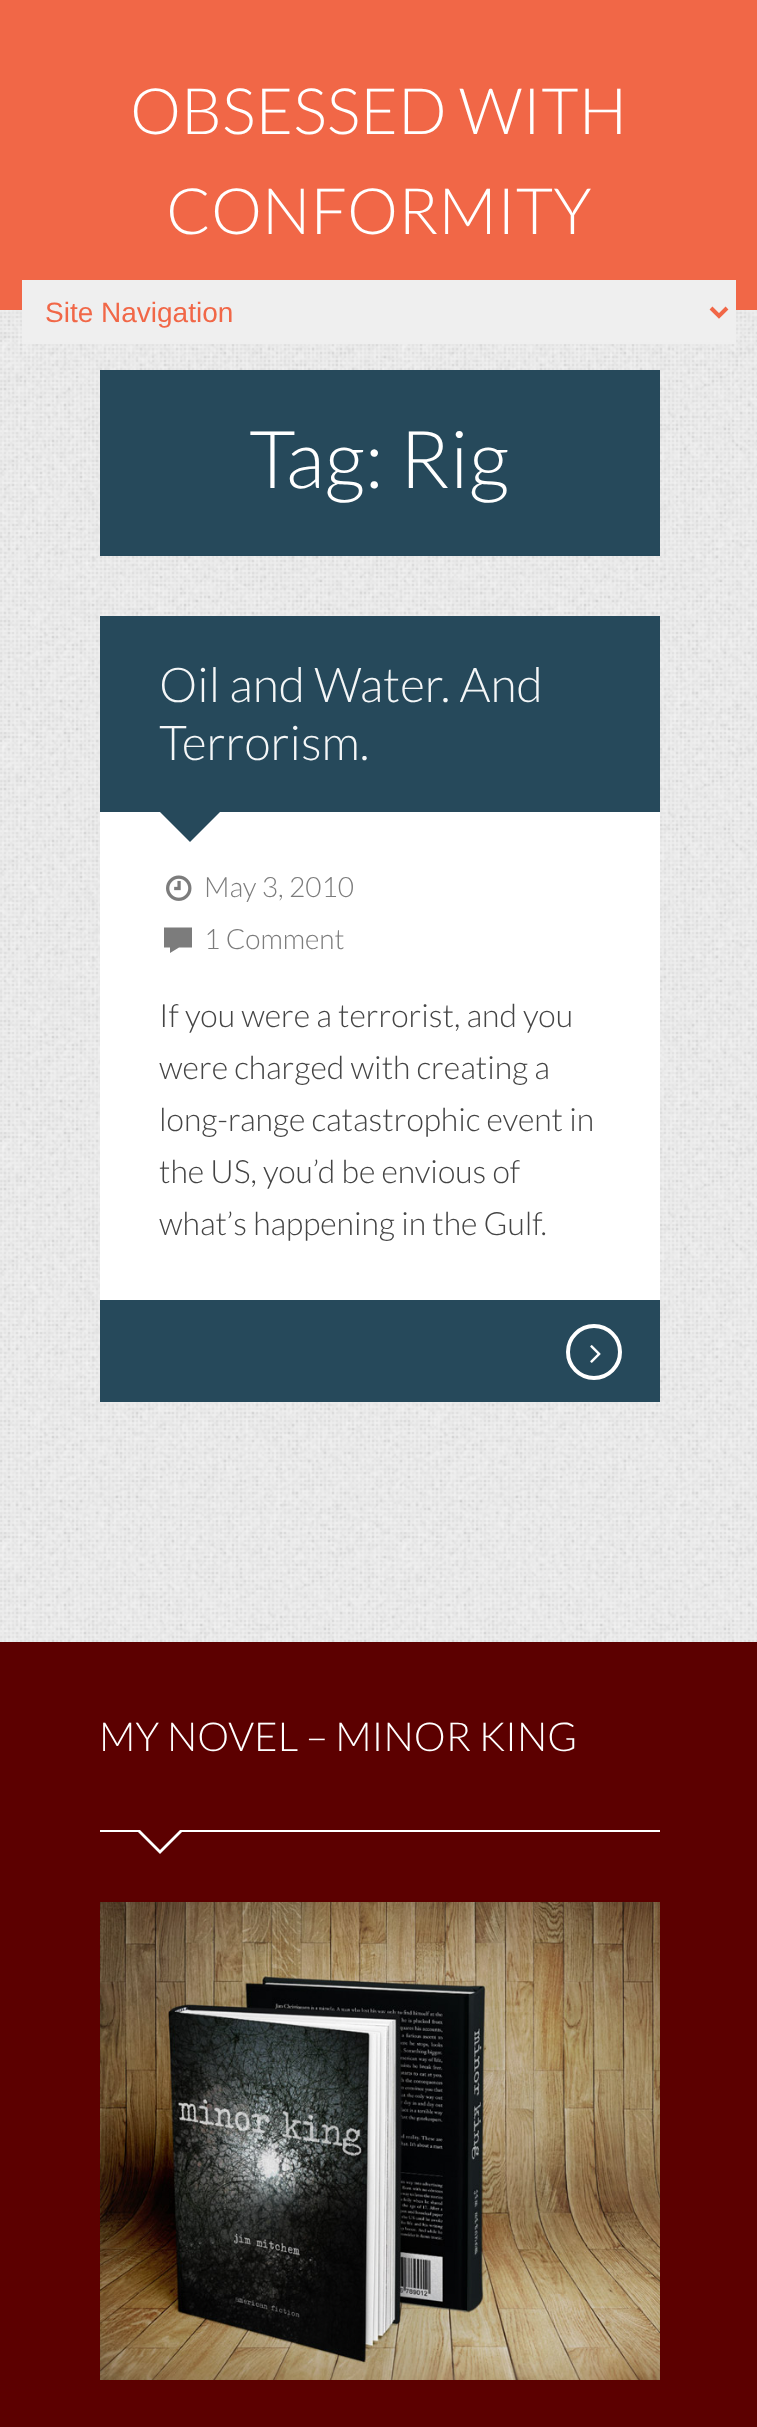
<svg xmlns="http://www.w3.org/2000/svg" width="757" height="2427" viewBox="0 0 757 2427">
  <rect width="100%" height="100%" fill="#ffffff"/>
  <image x="0" y="310" width="757" height="1332" href="img1.png"/>
  <rect x="0" y="0" width="757" height="310" fill="#f16747"/>
  <text x="130" y="134" font-family="Lato" font-size="64" font-weight="300" fill="#ffffff">OBSESSED WITH</text>
  <text x="166" y="234" font-family="Lato" font-size="64" font-weight="300" fill="#ffffff">CONFORMITY</text>
  <rect x="22" y="280" width="714" height="64" fill="#efefef"/>
  <path d="M711 308L719 316L727 308" fill="none" stroke="#f16747" stroke-width="4"/>
  <text x="45" y="322" font-family="Liberation Sans" font-size="28" fill="#f16747">Site Navigation</text>
  <rect x="100" y="370" width="560" height="186" fill="#26495b"/>
  <text x="249" y="488" font-family="Lato" font-size="80" font-weight="300" fill="#ffffff">Tag: Rig</text>
  <rect x="100" y="812" width="560" height="488" fill="#ffffff"/>
  <rect x="100" y="616" width="560" height="196" fill="#26495b"/>
  <text x="159" y="702" font-family="Lato" font-size="48" font-weight="300" fill="#f4f6f7">Oil and Water. And</text>
  <text x="159" y="760" font-family="Lato" font-size="48" font-weight="300" fill="#f4f6f7">Terrorism.</text>
  <path d="M160 812H220L190 842Z" fill="#26495b"/>
  <image x="166" y="875" width="26" height="26" href="img2.png"/>
  <text x="204" y="897" font-family="Lato" font-size="28" font-weight="300" fill="#7c7c7c">May 3, 2010</text>
  <path d="M164 947.5V927.5H192V947.5H179L170 953V947.5Z" fill="#7c7c7c"/>
  <text x="204" y="949" font-family="Lato" font-size="28" font-weight="300" fill="#7c7c7c">1 Comment</text>
  <text x="159" y="1027" font-family="Lato" font-size="32" font-weight="300" fill="#444444">If you were a terrorist, and you</text>
  <text x="159" y="1079" font-family="Lato" font-size="32" font-weight="300" fill="#444444">were charged with creating a</text>
  <text x="159" y="1131" font-family="Lato" font-size="32" font-weight="300" fill="#444444">long-range catastrophic event in</text>
  <text x="159" y="1183" font-family="Lato" font-size="32" font-weight="300" fill="#444444">the US, you’d be envious of</text>
  <text x="159" y="1235" font-family="Lato" font-size="32" font-weight="300" fill="#444444">what’s happening in the Gulf.</text>
  <rect x="100" y="1300" width="560" height="102" fill="#26495b"/>
  <circle cx="594" cy="1352" r="26" fill="none" stroke="#ffffff" stroke-width="4"/>
  <image x="590" y="1345" width="11" height="18" href="img3.png"/>
  <rect x="0" y="1642" width="757" height="785" fill="#5c0000"/>
  <rect x="100" y="1830" width="560" height="2" fill="#ffffff"/>
  <text x="99" y="1751" font-family="Lato" font-size="40" font-weight="300" fill="#ffffff">MY NOVEL – MINOR KING</text>
  <path d="M136 1830H184L160 1854Z" fill="#ffffff"/>
  <path d="M140 1830H180L160 1850Z" fill="#5c0000"/>
  <image x="100" y="1902" width="560" height="478" href="img4.png"/>
</svg>
